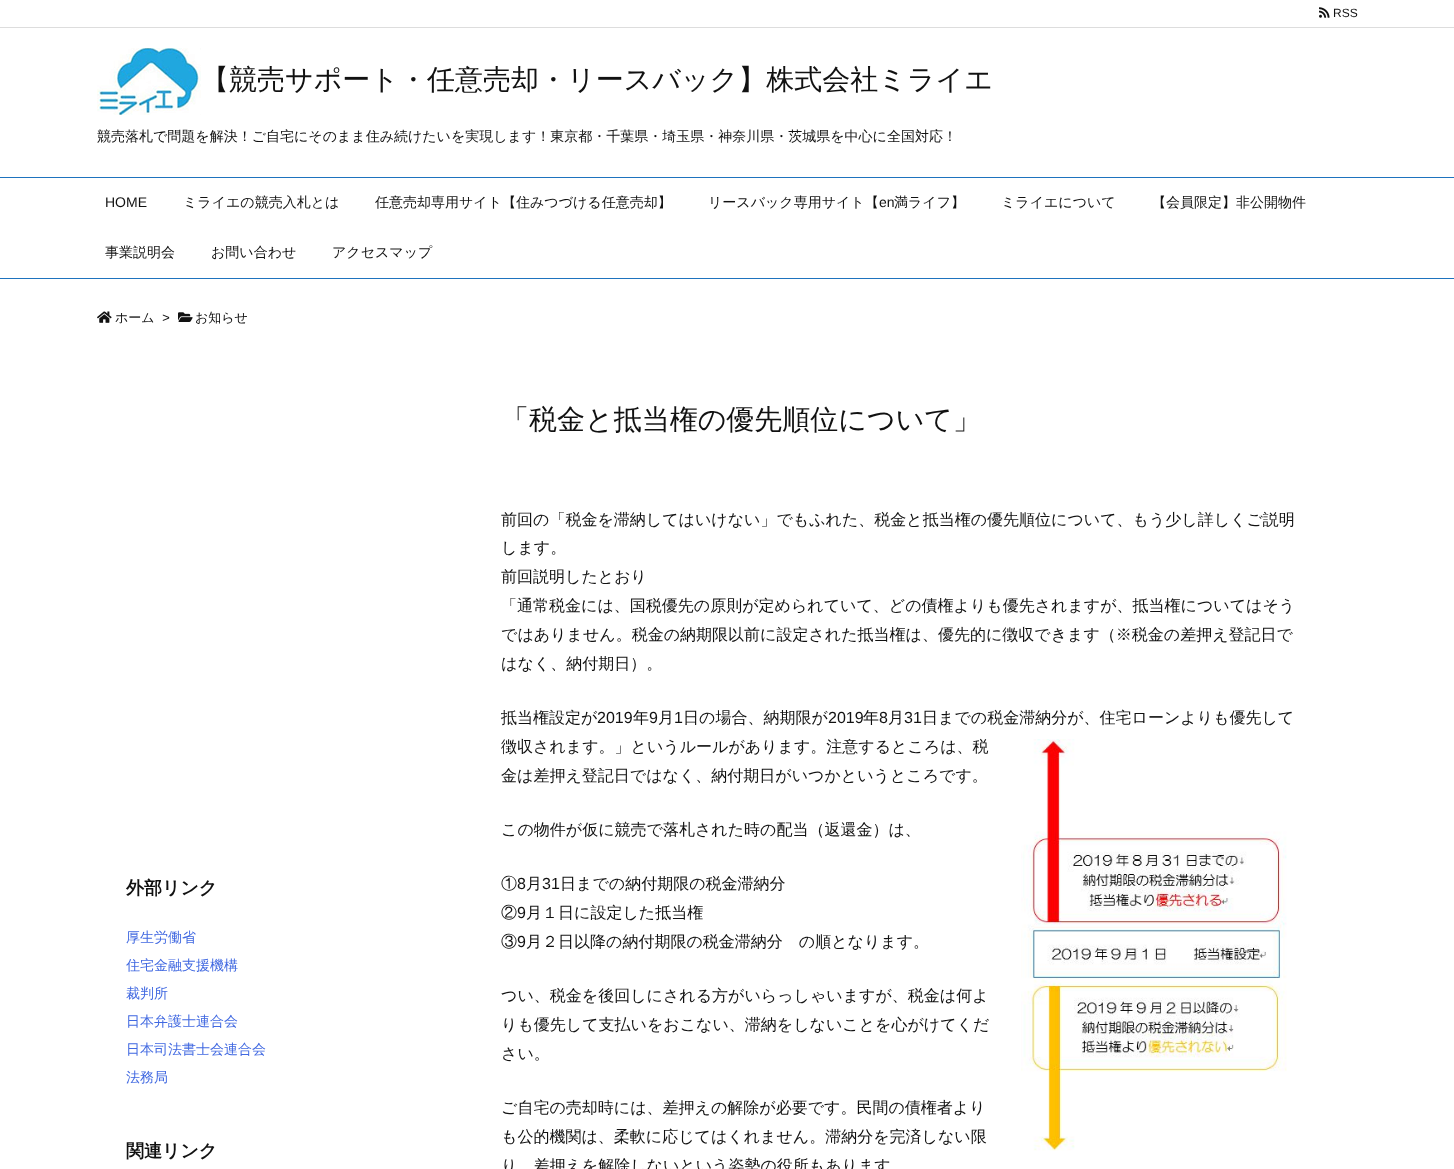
<svg xmlns="http://www.w3.org/2000/svg" width="1454" height="1169" viewBox="0 0 1454 1169">
  <rect width="100%" height="100%" fill="#ffffff"/>
  <rect x="0" y="27" width="1454" height="1" fill="#dddddd"/>
  <image x="1319" y="7" width="11" height="11" href="img1.png"/>
  <text x="1333" y="17" font-family="Liberation Sans" font-size="12" fill="#111111">RSS</text>
  <rect x="0" y="177" width="1454" height="1" fill="#1e73be"/>
  <rect x="0" y="278" width="1454" height="1" fill="#1e73be"/>
  <text x="105" y="207" font-family="Liberation Sans" font-size="14" fill="#111111">HOME</text>
  <text x="183" y="207" font-family="WenQuanYi Zen Hei" font-size="14" font-weight="500" fill="#111111">ミライエの競売入札とは</text>
  <text x="375" y="207" font-family="WenQuanYi Zen Hei" font-size="14" font-weight="500" fill="#111111">任意売却専用サイト【住みつづける任意売却】</text>
  <text x="708" y="207" font-family="WenQuanYi Zen Hei" font-size="14" font-weight="500" fill="#111111">リースバック専用サイト【</text>
  <text x="879" y="207" font-family="Liberation Sans" font-size="14" fill="#111111">en</text>
  <text x="894" y="207" font-family="WenQuanYi Zen Hei" font-size="14" font-weight="500" fill="#111111">満ライフ】</text>
  <text x="1001" y="207" font-family="WenQuanYi Zen Hei" font-size="14" font-weight="500" fill="#111111">ミライエについて</text>
  <text x="1152" y="207" font-family="WenQuanYi Zen Hei" font-size="14" font-weight="500" fill="#111111">【会員限定】非公開物件</text>
  <text x="105" y="257" font-family="WenQuanYi Zen Hei" font-size="14" font-weight="500" fill="#111111">事業説明会</text>
  <text x="211" y="257" font-family="WenQuanYi Zen Hei" font-size="14" font-weight="500" fill="#111111">お問い合わせ</text>
  <text x="332" y="257" font-family="WenQuanYi Zen Hei" font-size="14" font-weight="500" fill="#111111">アクセスマップ</text>
  <image x="97" y="48" width="104" height="67" href="img2.png"/>
  <text x="201" y="89" font-family="WenQuanYi Zen Hei" font-size="28" font-weight="500" fill="#111111">【競売サポート・任意売却・リースバック】株式会社ミライエ</text>
  <text x="97" y="141" font-family="WenQuanYi Zen Hei" font-size="14" font-weight="500" fill="#111111">競売落札で問題を解決！ご自宅にそのまま住み続けたいを実現します！東京都・千葉県・埼玉県・神奈川県・茨城県を中心に全国対応！</text>
  <image x="97" y="311" width="15" height="12" href="img3.png"/>
  <text x="115" y="322" font-family="WenQuanYi Zen Hei" font-size="13" font-weight="500" fill="#111111">ホーム</text>
  <text x="162" y="322" font-family="Liberation Sans" font-size="13" font-style="italic" fill="#111111">&gt;</text>
  <image x="178" y="312" width="15" height="10" href="img4.png"/>
  <text x="195" y="322" font-family="WenQuanYi Zen Hei" font-size="13" font-weight="500" fill="#111111">お知らせ</text>
  <text x="126" y="894" font-family="WenQuanYi Zen Hei" font-size="18" font-weight="bold" fill="#111111">外部リンク</text>
  <text x="126" y="942" font-family="WenQuanYi Zen Hei" font-size="14" font-weight="500" fill="#4169e1">厚生労働省</text>
  <text x="126" y="970" font-family="WenQuanYi Zen Hei" font-size="14" font-weight="500" fill="#4169e1">住宅金融支援機構</text>
  <text x="126" y="998" font-family="WenQuanYi Zen Hei" font-size="14" font-weight="500" fill="#4169e1">裁判所</text>
  <text x="126" y="1026" font-family="WenQuanYi Zen Hei" font-size="14" font-weight="500" fill="#4169e1">日本弁護士連合会</text>
  <text x="126" y="1054" font-family="WenQuanYi Zen Hei" font-size="14" font-weight="500" fill="#4169e1">日本司法書士会連合会</text>
  <text x="126" y="1082" font-family="WenQuanYi Zen Hei" font-size="14" font-weight="500" fill="#4169e1">法務局</text>
  <text x="126" y="1157" font-family="WenQuanYi Zen Hei" font-size="18" font-weight="bold" fill="#111111">関連リンク</text>
  <text x="501" y="429" font-family="WenQuanYi Zen Hei" font-size="28" font-weight="500" fill="#111111">「税金と抵当権の優先順位について」</text>
  <text x="501" y="525" font-family="WenQuanYi Zen Hei" font-size="16" font-weight="500" fill="#111111">前回の「税金を滞納してはいけない」でもふれた、税金と抵当権の優先順位について、もう少し詳しくご説明</text>
  <text x="501" y="553" font-family="WenQuanYi Zen Hei" font-size="16" font-weight="500" fill="#111111">します。</text>
  <text x="501" y="582" font-family="WenQuanYi Zen Hei" font-size="16" font-weight="500" fill="#111111">前回説明したとおり</text>
  <text x="501" y="611" font-family="WenQuanYi Zen Hei" font-size="16" font-weight="500" fill="#111111">「通常税金には、国税優先の原則が定められていて、どの債権よりも優先されますが、抵当権についてはそう</text>
  <text x="501" y="640" font-family="WenQuanYi Zen Hei" font-size="16" font-weight="500" fill="#111111">ではありません。税金の納期限以前に設定された抵当権は、優先的に徴収できます（※税金の差押え登記日で</text>
  <text x="501" y="669" font-family="WenQuanYi Zen Hei" font-size="16" font-weight="500" fill="#111111">はなく、納付期日）。</text>
  <text x="501" y="723" font-family="WenQuanYi Zen Hei" font-size="16" font-weight="500" fill="#111111">抵当権設定が</text>
  <text x="597" y="723" font-family="Liberation Sans" font-size="16" fill="#111111">2019</text>
  <text x="633" y="723" font-family="WenQuanYi Zen Hei" font-size="16" font-weight="500" fill="#111111">年</text>
  <text x="649" y="723" font-family="Liberation Sans" font-size="16" fill="#111111">9</text>
  <text x="658" y="723" font-family="WenQuanYi Zen Hei" font-size="16" font-weight="500" fill="#111111">月</text>
  <text x="674" y="723" font-family="Liberation Sans" font-size="16" fill="#111111">1</text>
  <text x="683" y="723" font-family="WenQuanYi Zen Hei" font-size="16" font-weight="500" fill="#111111">日の場合、納期限が</text>
  <text x="828" y="723" font-family="Liberation Sans" font-size="16" fill="#111111">2019</text>
  <text x="863" y="723" font-family="WenQuanYi Zen Hei" font-size="16" font-weight="500" fill="#111111">年</text>
  <text x="879" y="723" font-family="Liberation Sans" font-size="16" fill="#111111">8</text>
  <text x="888" y="723" font-family="WenQuanYi Zen Hei" font-size="16" font-weight="500" fill="#111111">月</text>
  <text x="904" y="723" font-family="Liberation Sans" font-size="16" fill="#111111">31</text>
  <text x="922" y="723" font-family="WenQuanYi Zen Hei" font-size="16" font-weight="500" fill="#111111">日までの税金滞納分が、住宅ローンよりも優先して</text>
  <text x="501" y="752" font-family="WenQuanYi Zen Hei" font-size="16" font-weight="500" fill="#111111">徴収されます。」というルールがあります。注意するところは、税</text>
  <image x="1021" y="739" width="266" height="412" href="img5.png"/>
  <text x="501" y="781" font-family="WenQuanYi Zen Hei" font-size="16" font-weight="500" fill="#111111">金は差押え登記日ではなく、納付期日がいつかというところです。</text>
  <text x="501" y="835" font-family="WenQuanYi Zen Hei" font-size="16" font-weight="500" fill="#111111">この物件が仮に競売で落札された時の配当（返還金）は、</text>
  <text x="501" y="889" font-family="WenQuanYi Zen Hei" font-size="16" font-weight="500" fill="#111111">①</text>
  <text x="517" y="889" font-family="Liberation Sans" font-size="16" fill="#111111">8</text>
  <text x="526" y="889" font-family="WenQuanYi Zen Hei" font-size="16" font-weight="500" fill="#111111">月</text>
  <text x="542" y="889" font-family="Liberation Sans" font-size="16" fill="#111111">31</text>
  <text x="560" y="889" font-family="WenQuanYi Zen Hei" font-size="16" font-weight="500" fill="#111111">日までの納付期限の税金滞納分</text>
  <text x="501" y="918" font-family="WenQuanYi Zen Hei" font-size="16" font-weight="500" fill="#111111">②</text>
  <text x="517" y="918" font-family="Liberation Sans" font-size="16" fill="#111111">9</text>
  <text x="526" y="918" font-family="WenQuanYi Zen Hei" font-size="16" font-weight="500" fill="#111111">月１日に設定した抵当権</text>
  <text x="501" y="947" font-family="WenQuanYi Zen Hei" font-size="16" font-weight="500" fill="#111111">③</text>
  <text x="517" y="947" font-family="Liberation Sans" font-size="16" fill="#111111">9</text>
  <text x="526" y="947" font-family="WenQuanYi Zen Hei" font-size="16" font-weight="500" fill="#111111">月２日以降の納付期限の税金滞納分　の順となります。</text>
  <text x="501" y="1001" font-family="WenQuanYi Zen Hei" font-size="16" font-weight="500" fill="#111111">つい、税金を後回しにされる方がいらっしゃいますが、税金は何よ</text>
  <text x="501" y="1030" font-family="WenQuanYi Zen Hei" font-size="16" font-weight="500" fill="#111111">りも優先して支払いをおこない、滞納をしないことを心がけてくだ</text>
  <text x="501" y="1059" font-family="WenQuanYi Zen Hei" font-size="16" font-weight="500" fill="#111111">さい。</text>
  <text x="501" y="1113" font-family="WenQuanYi Zen Hei" font-size="16" font-weight="500" fill="#111111">ご自宅の売却時には、差押えの解除が必要です。民間の債権者より</text>
  <text x="501" y="1142" font-family="WenQuanYi Zen Hei" font-size="16" font-weight="500" fill="#111111">も公的機関は、柔軟に応じてはくれません。滞納分を完済しない限</text>
  <text x="501" y="1171" font-family="WenQuanYi Zen Hei" font-size="16" font-weight="500" fill="#111111">り、差押えを解除しないという姿勢の役所もあります</text>
</svg>
